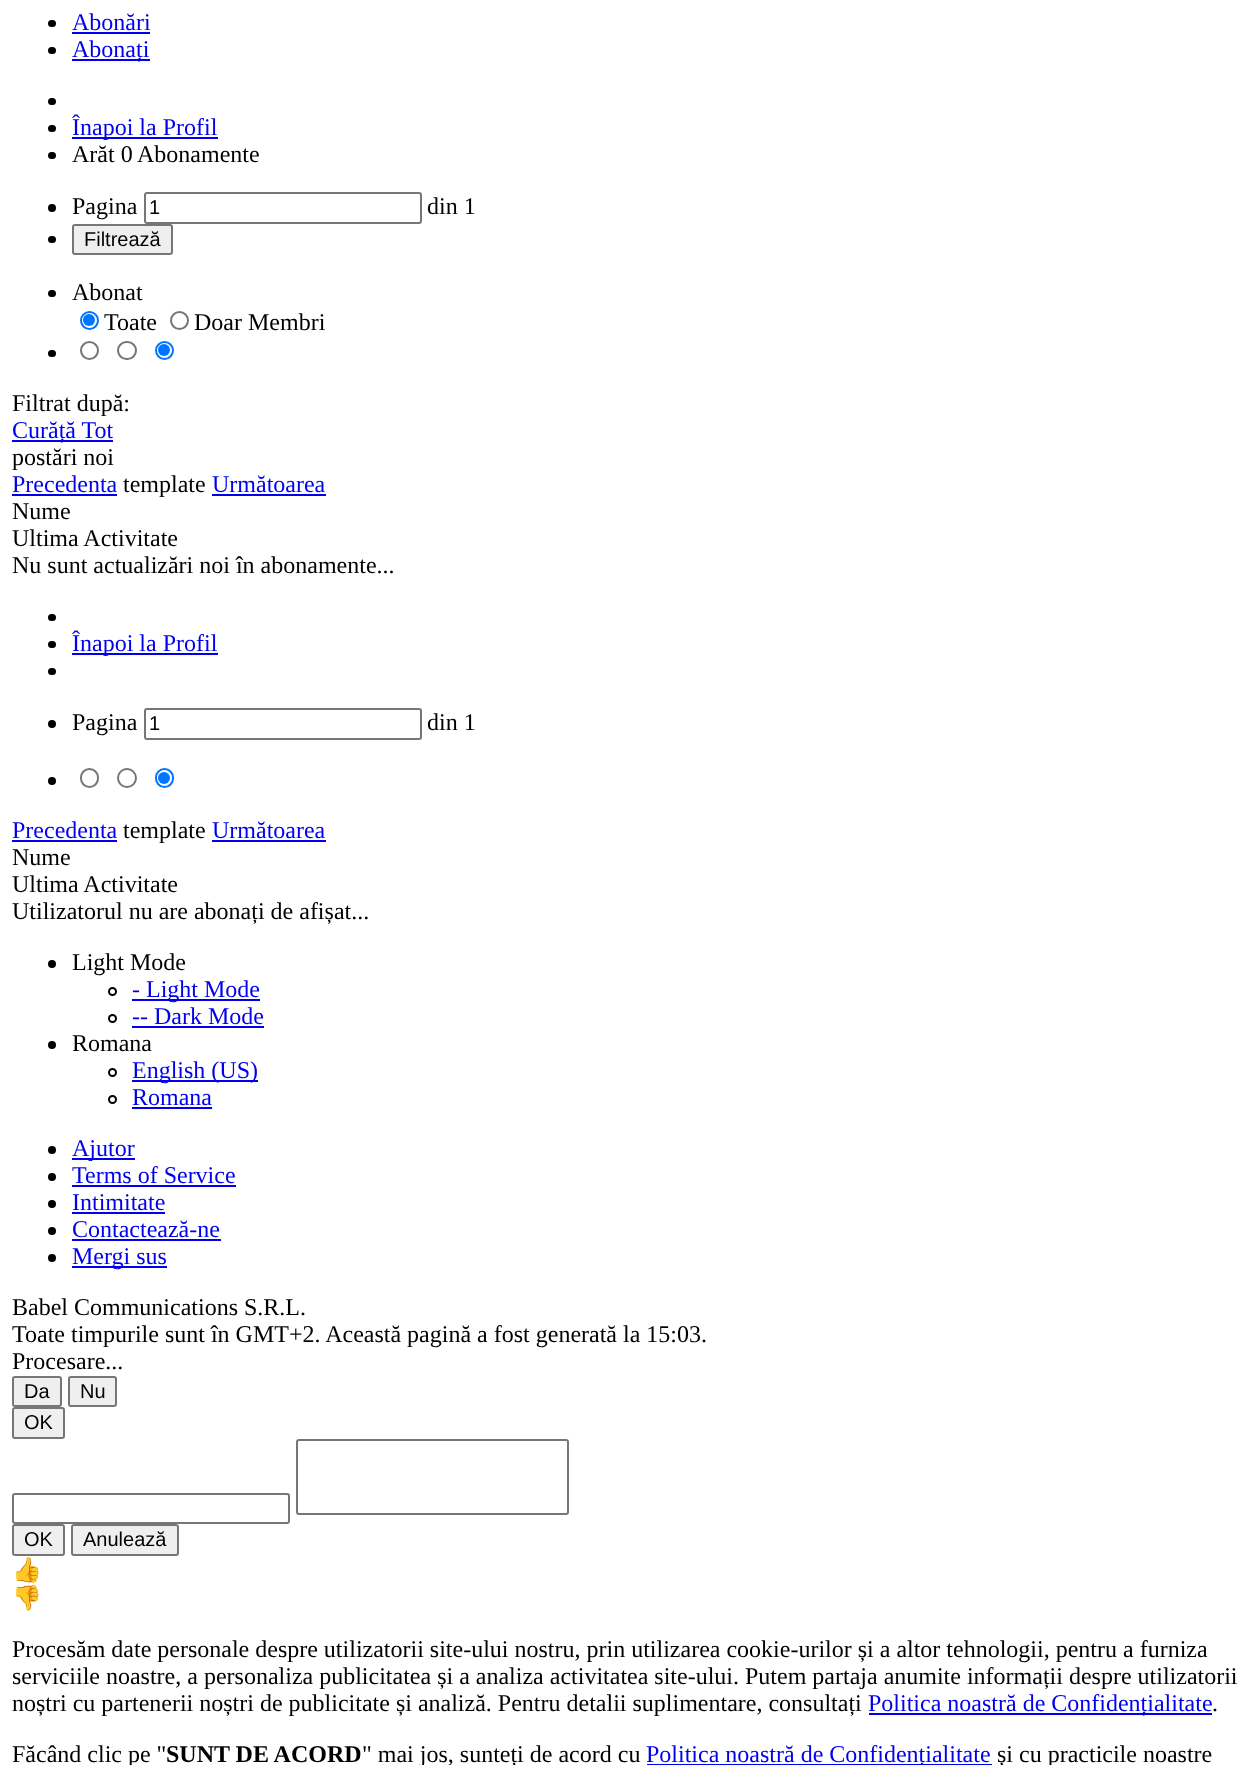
<svg xmlns="http://www.w3.org/2000/svg" width="1251" height="1765" viewBox="0 0 1251 1765">
  <rect width="100%" height="100%" fill="#ffffff"/>
  <rect x="48" y="20" width="8" height="7" rx="3.5" fill="#000000"/>
  <text x="72" y="30" font-family="Liberation Serif" font-size="24" fill="#0000ee">Abonări</text>
  <rect x="72" y="32" width="78" height="2" fill="#0000ee"/>
  <rect x="48" y="47" width="8" height="7" rx="3.5" fill="#000000"/>
  <rect x="72" y="59" width="78" height="2" fill="#0000ee"/>
  <text x="72" y="57" font-family="Liberation Serif" font-size="24" fill="#0000ee">Abonați</text>
  <rect x="48" y="98" width="8" height="7" rx="3.5" fill="#000000"/>
  <rect x="48" y="125" width="8" height="7" rx="3.5" fill="#000000"/>
  <rect x="72" y="137" width="146" height="2" fill="#0000ee"/>
  <text x="72" y="135" font-family="Liberation Serif" font-size="24" fill="#0000ee">Înapoi la Profil</text>
  <rect x="48" y="152" width="8" height="7" rx="3.5" fill="#000000"/>
  <text x="72" y="162" font-family="Liberation Serif" font-size="24" fill="#000000">Arăt 0</text>
  <text x="137" y="162" font-family="Liberation Serif" font-size="24" fill="#000000">Abonamente</text>
  <circle cx="52" cy="208" r="4" fill="#000000"/>
  <text x="72" y="214" font-family="Liberation Serif" font-size="24" fill="#000000">Pagina</text>
  <rect x="145" y="193" width="276" height="30" rx="2" fill="none" stroke="#767676" stroke-width="2"/>
  <text x="149" y="214" font-family="Liberation Sans" font-size="20" fill="#000000">1</text>
  <text x="427" y="214" font-family="Liberation Serif" font-size="24" fill="#000000">din 1</text>
  <rect x="48" y="236" width="8" height="7" rx="3.5" fill="#000000"/>
  <rect x="73" y="225" width="99" height="29" rx="2" fill="#efefef" stroke="#767676" stroke-width="2"/>
  <text x="84" y="246" font-family="Liberation Sans" font-size="20" fill="#000000">Filtrează</text>
  <rect x="48" y="290" width="8" height="7" rx="3.5" fill="#000000"/>
  <text x="72" y="300" font-family="Liberation Serif" font-size="24" fill="#000000">Abonat</text>
  <circle cx="89.5" cy="320.5" r="8.5" fill="none" stroke="#0075ff" stroke-width="2"/>
  <circle cx="89" cy="320" r="6" fill="#0075ff"/>
  <text x="104" y="330" font-family="Liberation Serif" font-size="24" fill="#000000">Toate</text>
  <circle cx="179.5" cy="320.5" r="8.5" fill="none" stroke="#767676" stroke-width="2"/>
  <text x="194" y="330" font-family="Liberation Serif" font-size="24" fill="#000000">Doar Membri</text>
  <rect x="48" y="350" width="8" height="7" rx="3.5" fill="#000000"/>
  <circle cx="89.5" cy="350.5" r="8.5" fill="none" stroke="#767676" stroke-width="2"/>
  <rect x="118" y="342" width="18" height="17" rx="8.5" fill="none" stroke="#767676" stroke-width="2"/>
  <circle cx="164.5" cy="350.5" r="8.5" fill="none" stroke="#0075ff" stroke-width="2"/>
  <circle cx="164" cy="350" r="6" fill="#0075ff"/>
  <text x="12" y="411" font-family="Liberation Serif" font-size="24" fill="#000000">Filtrat după:</text>
  <rect x="12" y="440" width="101" height="2" fill="#0000ee"/>
  <text x="12" y="438" font-family="Liberation Serif" font-size="24" fill="#0000ee">Curăță Tot</text>
  <text x="12" y="465" font-family="Liberation Serif" font-size="24" fill="#000000">postări noi</text>
  <text x="12" y="492" font-family="Liberation Serif" font-size="24" fill="#0000ee">Precedenta</text>
  <rect x="12" y="494" width="105" height="2" fill="#0000ee"/>
  <text x="123" y="492" font-family="Liberation Serif" font-size="24" fill="#000000">template</text>
  <text x="212" y="492" font-family="Liberation Serif" font-size="24" fill="#0000ee">Următoarea</text>
  <rect x="212" y="494" width="114" height="2" fill="#0000ee"/>
  <text x="12" y="519" font-family="Liberation Serif" font-size="24" fill="#000000">Nume</text>
  <text x="12" y="546" font-family="Liberation Serif" font-size="24" fill="#000000">Ultima Activitate</text>
  <text x="12" y="573" font-family="Liberation Serif" font-size="24" fill="#000000">Nu sunt actualizări noi în abonamente...</text>
  <rect x="48" y="614" width="8" height="7" rx="3.5" fill="#000000"/>
  <rect x="48" y="641" width="8" height="7" rx="3.5" fill="#000000"/>
  <rect x="72" y="653" width="146" height="2" fill="#0000ee"/>
  <text x="72" y="651" font-family="Liberation Serif" font-size="24" fill="#0000ee">Înapoi la Profil</text>
  <rect x="48" y="668" width="8" height="7" rx="3.5" fill="#000000"/>
  <circle cx="52" cy="724" r="4" fill="#000000"/>
  <text x="72" y="730" font-family="Liberation Serif" font-size="24" fill="#000000">Pagina</text>
  <rect x="145" y="709" width="276" height="30" rx="2" fill="none" stroke="#767676" stroke-width="2"/>
  <text x="149" y="730" font-family="Liberation Sans" font-size="20" fill="#000000">1</text>
  <text x="427" y="730" font-family="Liberation Serif" font-size="24" fill="#000000">din 1</text>
  <circle cx="52" cy="781" r="4" fill="#000000"/>
  <rect x="81" y="769" width="17" height="18" rx="8.5" fill="none" stroke="#767676" stroke-width="2"/>
  <circle cx="127" cy="778" r="9" fill="none" stroke="#767676" stroke-width="2"/>
  <rect x="156" y="769" width="17" height="18" rx="8.5" fill="none" stroke="#0075ff" stroke-width="2"/>
  <circle cx="164" cy="778" r="6" fill="#0075ff"/>
  <text x="12" y="838" font-family="Liberation Serif" font-size="24" fill="#0000ee">Precedenta</text>
  <rect x="12" y="840" width="105" height="2" fill="#0000ee"/>
  <text x="123" y="838" font-family="Liberation Serif" font-size="24" fill="#000000">template</text>
  <text x="212" y="838" font-family="Liberation Serif" font-size="24" fill="#0000ee">Următoarea</text>
  <rect x="212" y="840" width="114" height="2" fill="#0000ee"/>
  <text x="12" y="865" font-family="Liberation Serif" font-size="24" fill="#000000">Nume</text>
  <text x="12" y="892" font-family="Liberation Serif" font-size="24" fill="#000000">Ultima Activitate</text>
  <text x="12" y="919" font-family="Liberation Serif" font-size="24" fill="#000000">Utilizatorul nu are abonați de afișat...</text>
  <circle cx="52" cy="964" r="4" fill="#000000"/>
  <text x="72" y="970" font-family="Liberation Serif" font-size="24" fill="#000000">Light Mode</text>
  <circle cx="112.5" cy="991.5" r="3.5" fill="none" stroke="#000000" stroke-width="2"/>
  <rect x="132" y="999" width="128" height="2" fill="#0000ee"/>
  <text x="132" y="997" font-family="Liberation Serif" font-size="24" fill="#0000ee">- Light Mode</text>
  <circle cx="112.5" cy="1018.5" r="3.5" fill="none" stroke="#000000" stroke-width="2"/>
  <text x="132" y="1024" font-family="Liberation Serif" font-size="24" fill="#0000ee">-- Dark Mode</text>
  <rect x="132" y="1026" width="132" height="2" fill="#0000ee"/>
  <circle cx="52" cy="1045" r="4" fill="#000000"/>
  <text x="72" y="1051" font-family="Liberation Serif" font-size="24" fill="#000000">Romana</text>
  <circle cx="112.5" cy="1072.5" r="3.5" fill="none" stroke="#000000" stroke-width="2"/>
  <rect x="132" y="1080" width="126" height="2" fill="#0000ee"/>
  <text x="132" y="1078" font-family="Liberation Serif" font-size="24" fill="#0000ee">English (US)</text>
  <circle cx="112.5" cy="1099.5" r="3.5" fill="none" stroke="#000000" stroke-width="2"/>
  <text x="132" y="1105" font-family="Liberation Serif" font-size="24" fill="#0000ee">Romana</text>
  <rect x="132" y="1107" width="80" height="2" fill="#0000ee"/>
  <circle cx="52" cy="1150" r="4" fill="#000000"/>
  <rect x="72" y="1158" width="63" height="2" fill="#0000ee"/>
  <text x="72" y="1156" font-family="Liberation Serif" font-size="24" fill="#0000ee">Ajutor</text>
  <circle cx="52" cy="1177" r="4" fill="#000000"/>
  <text x="72" y="1183" font-family="Liberation Serif" font-size="24" fill="#0000ee">Terms of Service</text>
  <rect x="72" y="1185" width="164" height="2" fill="#0000ee"/>
  <circle cx="52" cy="1204" r="4" fill="#000000"/>
  <text x="72" y="1210" font-family="Liberation Serif" font-size="24" fill="#0000ee">Intimitate</text>
  <rect x="72" y="1212" width="93" height="2" fill="#0000ee"/>
  <circle cx="52" cy="1231" r="4" fill="#000000"/>
  <text x="72" y="1237" font-family="Liberation Serif" font-size="24" fill="#0000ee">Contactează-ne</text>
  <rect x="72" y="1239" width="149" height="2" fill="#0000ee"/>
  <circle cx="52" cy="1258" r="4" fill="#000000"/>
  <rect x="72" y="1266" width="95" height="2" fill="#0000ee"/>
  <text x="72" y="1264" font-family="Liberation Serif" font-size="24" fill="#0000ee">Mergi sus</text>
  <text x="12" y="1315" font-family="Liberation Serif" font-size="24" fill="#000000">Babel Communications S.R.L.</text>
  <text x="12" y="1342" font-family="Liberation Serif" font-size="24" fill="#000000">Toate timpurile sunt în GMT+2. Această pagină a fost generată la 15:03.</text>
  <text x="12" y="1369" font-family="Liberation Serif" font-size="24" fill="#000000">Procesare...</text>
  <rect x="13" y="1377" width="48" height="29" rx="2" fill="#efefef" stroke="#767676" stroke-width="2"/>
  <text x="24" y="1398" font-family="Liberation Sans" font-size="20" fill="#000000">Da</text>
  <rect x="69" y="1377" width="47" height="29" rx="2" fill="#efefef" stroke="#767676" stroke-width="2"/>
  <text x="80" y="1398" font-family="Liberation Sans" font-size="20" fill="#000000">Nu</text>
  <rect x="13" y="1408" width="51" height="30" rx="2" fill="#efefef" stroke="#767676" stroke-width="2"/>
  <text x="24" y="1429" font-family="Liberation Sans" font-size="20" fill="#000000">OK</text>
  <rect x="13" y="1494" width="276" height="29" rx="2" fill="none" stroke="#767676" stroke-width="2"/>
  <rect x="297" y="1440" width="271" height="74" rx="2" fill="none" stroke="#767676" stroke-width="2"/>
  <rect x="13" y="1525" width="51" height="30" rx="2" fill="#efefef" stroke="#767676" stroke-width="2"/>
  <text x="24" y="1546" font-family="Liberation Sans" font-size="20" fill="#000000">OK</text>
  <rect x="72" y="1525" width="106" height="30" rx="2" fill="#efefef" stroke="#767676" stroke-width="2"/>
  <text x="83" y="1546" font-family="Liberation Sans" font-size="20" fill="#000000">Anulează</text>
  <text x="12" y="1578" font-family="Noto Color Emoji" font-size="24" fill="#000000">👍</text>
  <text x="12" y="1606" font-family="Noto Color Emoji" font-size="24" fill="#000000">👎</text>
  <text x="12" y="1657" font-family="Liberation Serif" font-size="24" fill="#000000">Procesăm date personale despre utilizatorii site-ului nostru, prin utilizarea cookie-urilor și a altor tehnologii, pentru a furniza</text>
  <text x="12" y="1684" font-family="Liberation Serif" font-size="24" fill="#000000">serviciile noastre, a personaliza publicitatea și a analiza activitatea site-ului. Putem partaja anumite informații despre utilizatorii</text>
  <text x="12" y="1711" font-family="Liberation Serif" font-size="24" fill="#000000">noștri cu partenerii noștri de publicitate și analiză. Pentru detalii suplimentare, consultați</text>
  <rect x="869" y="1713" width="343" height="2" fill="#0000ee"/>
  <text x="868" y="1711" font-family="Liberation Serif" font-size="24" fill="#0000ee">Politica noastră de Confidențialitate</text>
  <text x="1212" y="1711" font-family="Liberation Serif" font-size="24" fill="#000000">.</text>
  <text x="12" y="1762" font-family="Liberation Serif" font-size="24" fill="#000000">Făcând clic pe "</text>
  <text x="166" y="1762" font-family="Liberation Serif" font-size="24" font-weight="bold" fill="#000000">SUNT DE ACORD</text>
  <text x="362" y="1762" font-family="Liberation Serif" font-size="24" fill="#000000">" mai jos, sunteți de acord cu</text>
  <rect x="647" y="1764" width="345" height="1" fill="#0000ee"/>
  <text x="646" y="1762" font-family="Liberation Serif" font-size="24" fill="#0000ee">Politica noastră de Confidențialitate</text>
  <text x="997" y="1762" font-family="Liberation Serif" font-size="24" fill="#000000">și cu practicile noastre</text>
</svg>
